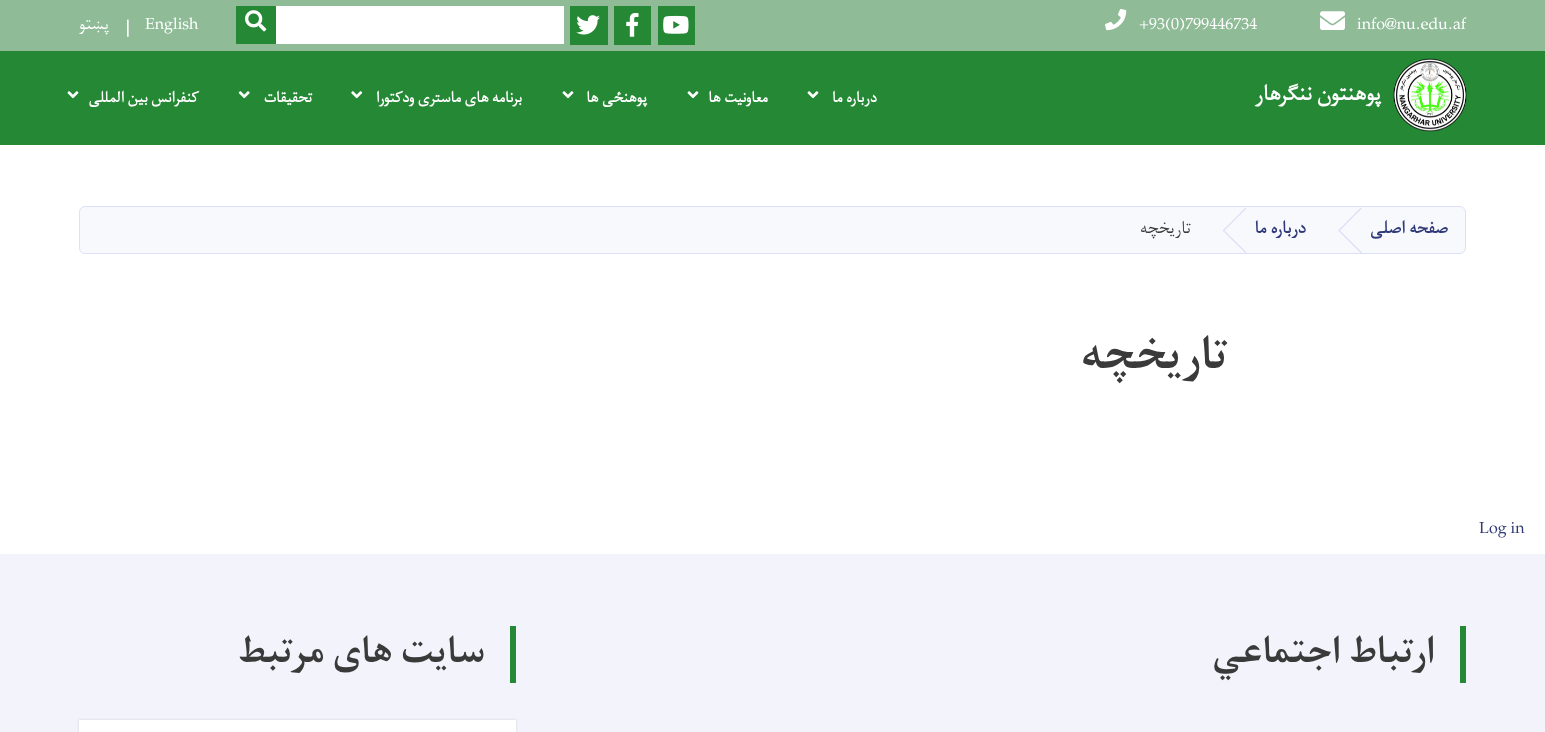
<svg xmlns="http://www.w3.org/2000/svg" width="1545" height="732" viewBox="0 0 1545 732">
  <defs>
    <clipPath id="clip1"><rect x="1254" y="208" width="109" height="45"/></clipPath>
    <clipPath id="clip2"><rect x="1140" y="208" width="106" height="45"/></clipPath>
    <filter id="blur1" x="-50%" y="-200%" width="200%" height="500%"><feGaussianBlur stdDeviation="1"/></filter>
  </defs>
  <rect width="100%" height="100%" fill="#ffffff"/>
  <rect x="0" y="0" width="1545" height="51" fill="#8fbb97"/>
  <text x="1357" y="29" font-family="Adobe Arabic" font-size="20" fill="#ffffff">info@nu.edu.af</text>
  <image x="1320" y="11" width="25" height="19" href="img1.png"/>
  <text x="1139" y="29" font-family="Adobe Arabic" font-size="20" fill="#ffffff">+93(0)799446734</text>
  <image x="1105" y="9" width="22" height="22" href="img2.png"/>
  <rect x="658" y="6" width="37" height="39" fill="#248835"/>
  <image x="663" y="15" width="26" height="19" href="img3.png"/>
  <rect x="614" y="6" width="37" height="39" fill="#248835"/>
  <image x="626" y="13" width="13" height="24" href="img4.png"/>
  <rect x="570" y="6" width="38" height="39" fill="#248835"/>
  <image x="576" y="15" width="24" height="20" href="img5.png"/>
  <rect x="276" y="6" width="288" height="38" fill="#ffffff"/>
  <rect x="236" y="6" width="40" height="38" fill="#248835"/>
  <image x="245" y="10" width="22" height="22" href="img6.png"/>
  <text x="145" y="29" font-family="Adobe Arabic" font-size="20" fill="#ffffff">English</text>
  <text x="126" y="33" font-family="Adobe Arabic" font-size="20" fill="#ffffff">|</text>
  <text x="109" y="29" font-family="Adobe Arabic" font-size="20" direction="rtl" fill="#ffffff">پښتو</text>
  <rect x="0" y="51" width="1545" height="94" fill="#248835"/>
  <text x="877" y="102" font-family="Adobe Arabic" font-size="17.5" font-weight="bold" direction="rtl" fill="#ffffff">درباره ما</text>
  <image x="807" y="91" width="12" height="8" href="img7.png"/>
  <text x="768" y="102" font-family="Adobe Arabic" font-size="17.5" font-weight="bold" direction="rtl" fill="#ffffff">معاونیت ها</text>
  <image x="687" y="91" width="12" height="8" href="img7.png"/>
  <text x="647" y="102" font-family="Adobe Arabic" font-size="17.5" font-weight="bold" direction="rtl" fill="#ffffff">پوهنځی ها</text>
  <image x="562" y="91" width="12" height="8" href="img7.png"/>
  <text x="522" y="102" font-family="Adobe Arabic" font-size="17.5" font-weight="bold" direction="rtl" fill="#ffffff">برنامه های ماستری ودکتورا</text>
  <image x="351" y="91" width="12" height="8" href="img8.png"/>
  <text x="312" y="102" font-family="Adobe Arabic" font-size="17.5" font-weight="bold" direction="rtl" fill="#ffffff">تحقیقات</text>
  <image x="238" y="91" width="12" height="8" href="img9.png"/>
  <text x="199" y="102" font-family="Adobe Arabic" font-size="17.5" font-weight="bold" direction="rtl" fill="#ffffff">کنفرانس بین المللی</text>
  <image x="67" y="91" width="12" height="8" href="img7.png"/>
  <image x="1393" y="58" width="74" height="74" href="img10.png"/>
  <text x="1381" y="100" font-family="Adobe Arabic" font-size="25" font-weight="bold" direction="rtl" fill="#ffffff">پوهنتون ننګرهار</text>
  <rect x="79.5" y="206.5" width="1386" height="47" rx="5.5" fill="#f8f9fd" stroke="#dce0f8"/>
  <text x="1448" y="233" font-family="Adobe Arabic" font-size="20" font-weight="bold" direction="rtl" fill="#303a79">صفحه اصلی</text>
  <g clip-path="url(#clip1)">
    <path d="M1377.5 191.5L1416.5 230.5L1377.5 269L1339 230.5Z" fill="none" stroke="#dce0f8" stroke-width="1.3"/>
  </g>
  <text x="1306" y="233" font-family="Adobe Arabic" font-size="20" font-weight="bold" direction="rtl" fill="#303a79">درباره ما</text>
  <g clip-path="url(#clip2)">
    <path d="M1262.5 191.5L1301.5 230.5L1262.5 269L1223.5 230.5Z" fill="none" stroke="#dce0f8" stroke-width="1.3"/>
  </g>
  <text x="1191" y="233" font-family="Adobe Arabic" font-size="20" direction="rtl" fill="#3a3a3a">تاریخچه</text>
  <text x="1229" y="368" font-family="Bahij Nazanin" font-size="52.5" font-weight="bold" direction="rtl" fill="#3a3a3a">تاریخچه</text>
  <text x="1479" y="533" font-family="Adobe Arabic" font-size="20" fill="#303a79">Log in</text>
  <rect x="0" y="554" width="1545" height="178" fill="#f2f3fb"/>
  <rect x="1460" y="626" width="6" height="57" fill="#248835"/>
  <text x="1435" y="662" font-family="Bahij Nazanin" font-size="42.5" font-weight="bold" direction="rtl" fill="#3a3a3a">ارتباط اجتماعي</text>
  <rect x="510" y="626" width="6" height="57" fill="#248835"/>
  <text x="485" y="662" font-family="Bahij Nazanin" font-size="42.5" font-weight="bold" direction="rtl" fill="#3a3a3a">سایت های مرتبط</text>
  <rect x="79" y="720" width="437" height="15" fill="#b9b9b9" fill-opacity="0.6" filter="url(#blur1)"/>
  <rect x="79" y="720" width="437" height="12" fill="#ffffff"/>
</svg>
